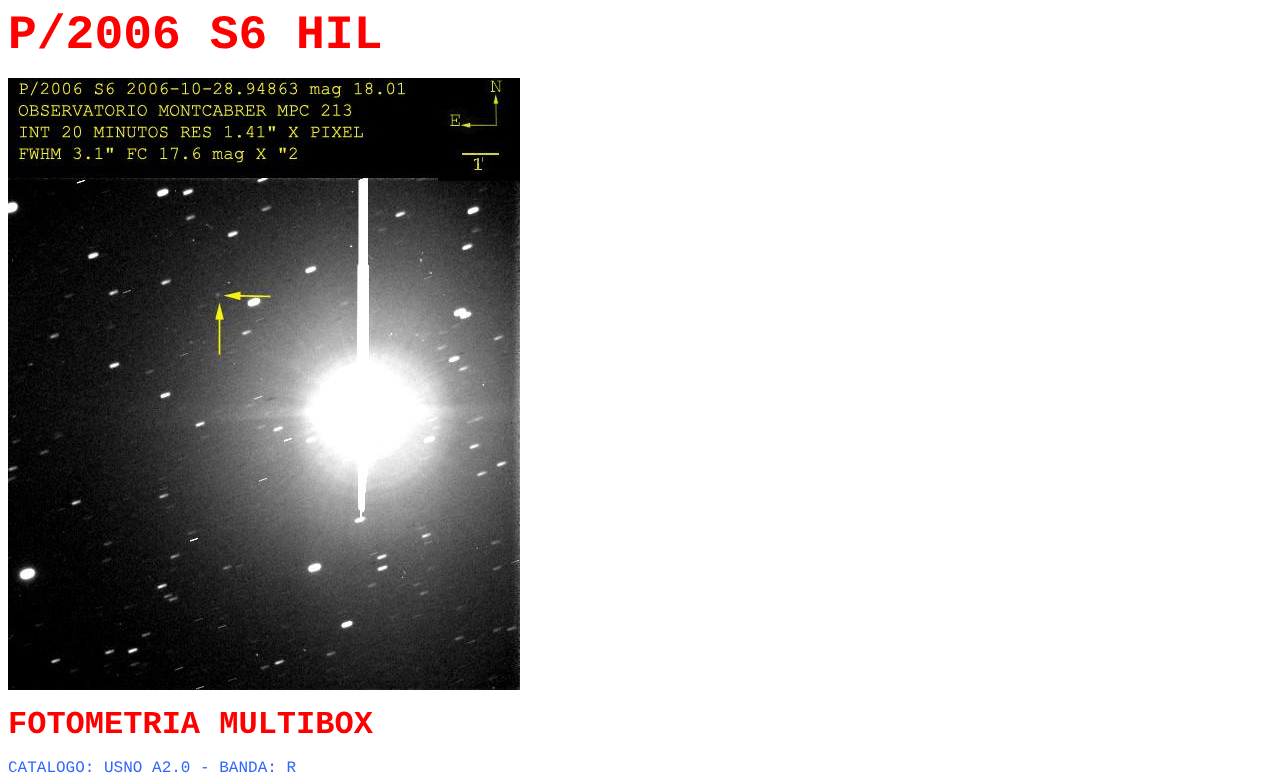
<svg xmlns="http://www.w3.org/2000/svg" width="1270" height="781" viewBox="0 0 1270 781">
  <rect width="100%" height="100%" fill="#ffffff"/>
  <text x="8" y="48" font-family="Liberation Mono" font-size="48" font-weight="bold" fill="#ff0000">P/2006 S6 HIL</text>
  <image x="8" y="78" width="512" height="612" href="img1.png"/>
  <text x="8" y="733" font-family="Liberation Mono" font-size="32" font-weight="bold" fill="#ff0000">FOTOMETRIA MULTIBOX</text>
  <text x="8" y="772" font-family="Liberation Mono" font-size="16" fill="#3366ff">CATALOGO: USNO A2.0 - BANDA: R</text>
</svg>
